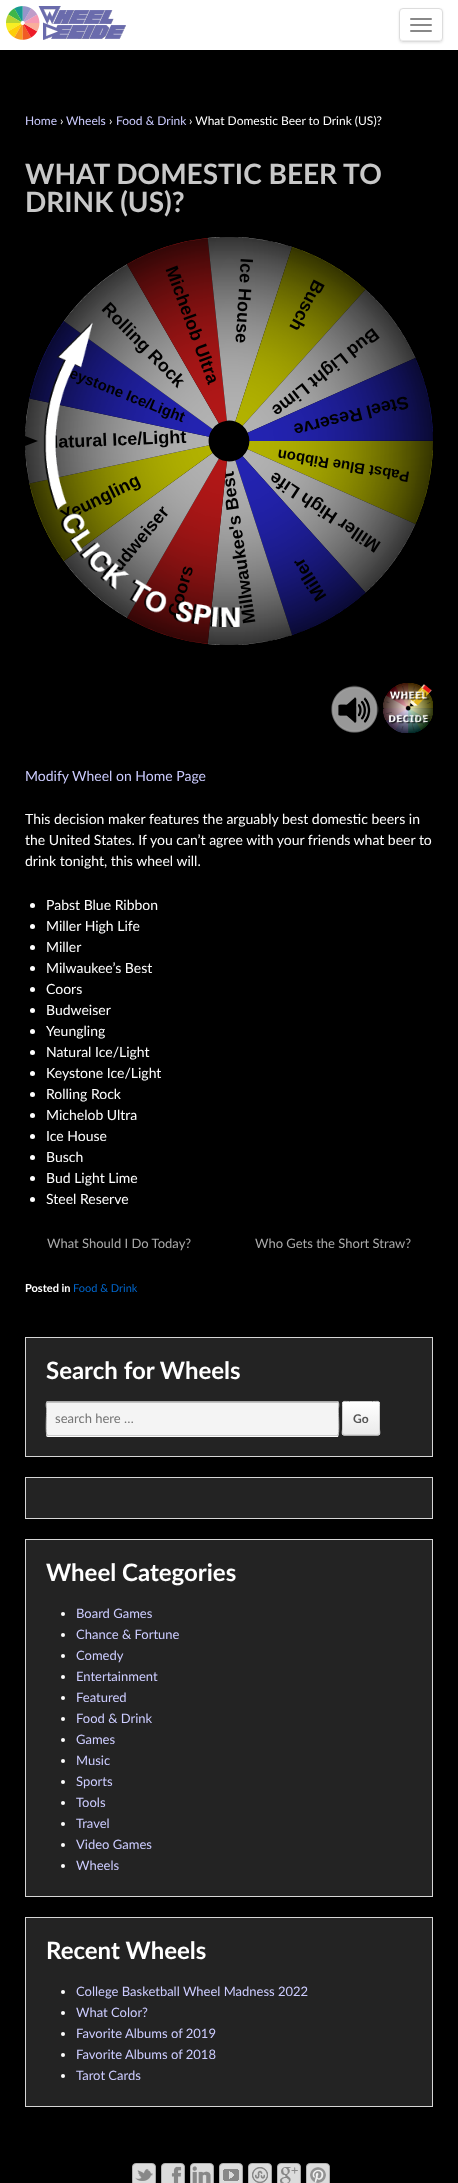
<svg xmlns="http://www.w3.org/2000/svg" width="458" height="2183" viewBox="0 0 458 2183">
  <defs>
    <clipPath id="clip1"><path d="M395 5H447V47H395ZM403 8H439C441 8 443 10 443 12V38C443 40 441 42 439 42H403C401 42 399 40 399 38V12C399 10 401 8 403 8Z" clip-rule="evenodd"/></clipPath>
    <filter id="blur1" x="-50%" y="-200%" width="200%" height="500%"><feGaussianBlur stdDeviation="1"/></filter>
    <clipPath id="clip2"><rect x="342" y="1401" width="38" height="35" rx="2"/></clipPath>
    <linearGradient id="g1" gradientUnits="userSpaceOnUse" x1="361" y1="1402" x2="361" y2="1435"><stop offset="0" stop-color="#ffffff"/><stop offset="1" stop-color="#eaeaea"/></linearGradient>
  </defs>
  <rect width="100%" height="100%" fill="#000000"/>
  <rect x="0" y="0" width="458" height="50" fill="#ffffff"/>
  <image x="6" y="6" width="120" height="34" href="img1.png"/>
  <g clip-path="url(#clip1)">
    <rect x="399" y="9" width="44" height="34" rx="4" fill="#000000" fill-opacity="0.1" filter="url(#blur1)"/>
  </g>
  <path d="M400 37C400 42 405 41 409 41H433C437 41 442 42 442 37C442 39 441 40 439 40H403C401 40 400 39 400 37Z" fill="#ececec"/>
  <rect x="399.5" y="8.5" width="43" height="33" rx="3.5" fill="none" stroke="#dddddd"/>
  <rect x="410" y="18" width="22" height="2" rx="1" fill="#888888"/>
  <rect x="410" y="24" width="22" height="2" rx="1" fill="#888888"/>
  <rect x="410" y="30" width="22" height="2" rx="1" fill="#888888"/>
  <text x="25" y="125" font-family="Lato" font-size="12" fill="#ccccff">Home</text>
  <text x="60" y="125" font-family="Lato" font-size="12" fill="#ffffff">›</text>
  <text x="66" y="125" font-family="Lato" font-size="12" fill="#ccccff">Wheels</text>
  <text x="109" y="125" font-family="Lato" font-size="12" fill="#ffffff">›</text>
  <text x="116" y="125" font-family="Lato" font-size="12" fill="#ccccff">Food &amp; Drink</text>
  <text x="189" y="125" font-family="Lato" font-size="12" fill="#ffffff">› What Domestic Beer to Drink (US)?</text>
  <text x="25" y="184" font-family="Lato" font-size="28" font-weight="bold" fill="#c8c8c8">WHAT DOMESTIC BEER TO</text>
  <text x="25" y="212" font-family="Lato" font-size="28" font-weight="bold" fill="#c8c8c8">DRINK (US)?</text>
  <image x="25" y="237" width="408" height="496" href="img2.png"/>
  <text x="25" y="781" font-family="Lato" font-size="14" fill="#ccccff">Modify Wheel on Home Page</text>
  <text x="25" y="824" font-family="Lato" font-size="14" fill="#ffffff">This decision maker features the arguably best domestic beers in</text>
  <text x="25" y="845" font-family="Lato" font-size="14" fill="#ffffff">the United States. If you can’t agree with your friends what beer to</text>
  <text x="25" y="866" font-family="Lato" font-size="14" fill="#ffffff">drink tonight, this wheel will.</text>
  <circle cx="32.5" cy="905.5" r="2.5" fill="#ffffff"/>
  <text x="46" y="910" font-family="Lato" font-size="14" fill="#ffffff">Pabst Blue Ribbon</text>
  <circle cx="32.5" cy="926.5" r="2.5" fill="#ffffff"/>
  <text x="46" y="931" font-family="Lato" font-size="14" fill="#ffffff">Miller High Life</text>
  <circle cx="32.5" cy="947.5" r="2.5" fill="#ffffff"/>
  <text x="46" y="952" font-family="Lato" font-size="14" fill="#ffffff">Miller</text>
  <circle cx="32.5" cy="968.5" r="2.5" fill="#ffffff"/>
  <text x="46" y="973" font-family="Lato" font-size="14" fill="#ffffff">Milwaukee’s Best</text>
  <circle cx="32.5" cy="989.5" r="2.5" fill="#ffffff"/>
  <text x="46" y="994" font-family="Lato" font-size="14" fill="#ffffff">Coors</text>
  <circle cx="32.5" cy="1010.5" r="2.5" fill="#ffffff"/>
  <text x="46" y="1015" font-family="Lato" font-size="14" fill="#ffffff">Budweiser</text>
  <circle cx="32.5" cy="1031.5" r="2.5" fill="#ffffff"/>
  <text x="46" y="1036" font-family="Lato" font-size="14" fill="#ffffff">Yeungling</text>
  <circle cx="32.5" cy="1052.5" r="2.5" fill="#ffffff"/>
  <text x="46" y="1057" font-family="Lato" font-size="14" fill="#ffffff">Natural Ice/Light</text>
  <circle cx="32.5" cy="1073.5" r="2.5" fill="#ffffff"/>
  <text x="46" y="1078" font-family="Lato" font-size="14" fill="#ffffff">Keystone Ice/Light</text>
  <circle cx="32.5" cy="1094.5" r="2.5" fill="#ffffff"/>
  <text x="46" y="1099" font-family="Lato" font-size="14" fill="#ffffff">Rolling Rock</text>
  <circle cx="32.5" cy="1115.5" r="2.5" fill="#ffffff"/>
  <text x="46" y="1120" font-family="Lato" font-size="14" fill="#ffffff">Michelob Ultra</text>
  <circle cx="32.5" cy="1136.5" r="2.5" fill="#ffffff"/>
  <text x="46" y="1141" font-family="Lato" font-size="14" fill="#ffffff">Ice House</text>
  <circle cx="32.5" cy="1157.5" r="2.5" fill="#ffffff"/>
  <text x="46" y="1162" font-family="Lato" font-size="14" fill="#ffffff">Busch</text>
  <circle cx="32.5" cy="1178.5" r="2.5" fill="#ffffff"/>
  <text x="46" y="1183" font-family="Lato" font-size="14" fill="#ffffff">Bud Light Lime</text>
  <circle cx="32.5" cy="1199.5" r="2.5" fill="#ffffff"/>
  <text x="46" y="1204" font-family="Lato" font-size="14" fill="#ffffff">Steel Reserve</text>
  <text x="47" y="1248" font-family="Lato" font-size="13" fill="#aaaaaa">What Should I Do Today?</text>
  <text x="255" y="1248" font-family="Lato" font-size="13" fill="#aaaaaa">Who Gets the Short Straw?</text>
  <text x="25" y="1292" font-family="Lato" font-size="11" font-weight="bold" fill="#ffffff">Posted in</text>
  <text x="73" y="1292" font-family="Lato" font-size="11" fill="#0066cc">Food &amp; Drink</text>
  <rect x="25.5" y="1337.5" width="407" height="119" fill="#232323" stroke="#d6d6d6"/>
  <text x="46" y="1379" font-family="Lato" font-size="24" font-weight="bold" fill="#ffffff">Search for Wheels</text>
  <path d="M46 1434C46 1435 46 1437 48 1437H338L339 1434C339 1435 338 1436 337 1436H48C47 1436 46 1435 46 1434Z" fill="#ffffff"/>
  <rect x="46" y="1401" width="293" height="35" rx="2" fill="#f4f4f4"/>
  <path d="M48 1403H337C338 1403 338 1403 338 1404C338 1403 338 1402 337 1402H48H47V1404C47 1403 47 1403 48 1403Z" fill="#c3c3c3"/>
  <path d="M338 1435L337 1435.5H48L47 1435" fill="none" stroke="#cccccc"/>
  <path d="M47 1435C45.5 1434 46.5 1416 46.5 1413.5V1408C46.5 1408 45 1401.5 48 1401.5H337C340 1401.5 338.5 1408 338.5 1408V1413.5C338.5 1416 339.5 1434 338 1435" fill="none" stroke="#aaaaaa"/>
  <text x="55" y="1423" font-family="Lato" font-size="13" fill="#757575">search here …</text>
  <g clip-path="url(#clip2)">
    <rect x="342" y="1402" width="38" height="33" fill="url(#g1)"/>
  </g>
  <path d="M344 1403H378L379 1404C379 1400.5 376 1402 372.5 1402H349.5C347 1402 343 1400.5 343 1403.5Z" fill="#ffffff"/>
  <path d="M343 1432.5C343 1436.5 344.5 1435 349.5 1435H372.5C377.5 1435 379 1436.5 379 1432.5C378.5 1435 374 1434 372 1434H350C348 1434 343.5 1435 343 1432.5Z" fill="#d8d8d8"/>
  <path d="M379 1435L378 1435.5H344L343 1435" fill="none" stroke="#aaaaaa"/>
  <path d="M343 1435C341.5 1433.5 342.5 1431 342.5 1429V1408C342.5 1400 341.5 1401.5 349.5 1401.5H372.5C380.5 1401.5 379.5 1400 379.5 1408V1429C379.5 1431 380.5 1433.5 379 1435" fill="none" stroke="#cccccc"/>
  <text x="353" y="1423" font-family="Lato" font-size="12" font-weight="bold" fill="#555555">Go</text>
  <rect x="25.5" y="1477.5" width="407" height="41" fill="#232323" stroke="#d6d6d6"/>
  <rect x="25.5" y="1539.5" width="407" height="357" fill="#232323" stroke="#d6d6d6"/>
  <text x="46" y="1581" font-family="Lato" font-size="24" font-weight="bold" fill="#ffffff">Wheel Categories</text>
  <circle cx="63" cy="1614" r="2" fill="#ffffff"/>
  <text x="76" y="1618" font-family="Lato" font-size="13" fill="#ccccff">Board Games</text>
  <circle cx="63" cy="1635" r="2" fill="#ffffff"/>
  <text x="76" y="1639" font-family="Lato" font-size="13" fill="#ccccff">Chance &amp; Fortune</text>
  <circle cx="63" cy="1656" r="2" fill="#ffffff"/>
  <text x="76" y="1660" font-family="Lato" font-size="13" fill="#ccccff">Comedy</text>
  <circle cx="63" cy="1677" r="2" fill="#ffffff"/>
  <text x="76" y="1681" font-family="Lato" font-size="13" fill="#ccccff">Entertainment</text>
  <circle cx="63" cy="1698" r="2" fill="#ffffff"/>
  <text x="76" y="1702" font-family="Lato" font-size="13" fill="#ccccff">Featured</text>
  <circle cx="63" cy="1719" r="2" fill="#ffffff"/>
  <text x="76" y="1723" font-family="Lato" font-size="13" fill="#ccccff">Food &amp; Drink</text>
  <circle cx="63" cy="1740" r="2" fill="#ffffff"/>
  <text x="76" y="1744" font-family="Lato" font-size="13" fill="#ccccff">Games</text>
  <circle cx="63" cy="1761" r="2" fill="#ffffff"/>
  <text x="76" y="1765" font-family="Lato" font-size="13" fill="#ccccff">Music</text>
  <circle cx="63" cy="1782" r="2" fill="#ffffff"/>
  <text x="76" y="1786" font-family="Lato" font-size="13" fill="#ccccff">Sports</text>
  <circle cx="63" cy="1803" r="2" fill="#ffffff"/>
  <text x="76" y="1807" font-family="Lato" font-size="13" fill="#ccccff">Tools</text>
  <circle cx="63" cy="1824" r="2" fill="#ffffff"/>
  <text x="76" y="1828" font-family="Lato" font-size="13" fill="#ccccff">Travel</text>
  <circle cx="63" cy="1845" r="2" fill="#ffffff"/>
  <text x="76" y="1849" font-family="Lato" font-size="13" fill="#ccccff">Video Games</text>
  <circle cx="63" cy="1866" r="2" fill="#ffffff"/>
  <text x="76" y="1870" font-family="Lato" font-size="13" fill="#ccccff">Wheels</text>
  <rect x="25.5" y="1917.5" width="407" height="189" fill="#232323" stroke="#d6d6d6"/>
  <text x="46" y="1959" font-family="Lato" font-size="24" font-weight="bold" fill="#ffffff">Recent Wheels</text>
  <circle cx="63" cy="1992" r="2" fill="#ffffff"/>
  <text x="76" y="1996" font-family="Lato" font-size="13" fill="#ccccff">College Basketball Wheel Madness 2022</text>
  <circle cx="63" cy="2013" r="2" fill="#ffffff"/>
  <text x="76" y="2017" font-family="Lato" font-size="13" fill="#ccccff">What Color?</text>
  <circle cx="63" cy="2034" r="2" fill="#ffffff"/>
  <text x="76" y="2038" font-family="Lato" font-size="13" fill="#ccccff">Favorite Albums of 2019</text>
  <circle cx="63" cy="2055" r="2" fill="#ffffff"/>
  <text x="76" y="2059" font-family="Lato" font-size="13" fill="#ccccff">Favorite Albums of 2018</text>
  <circle cx="63" cy="2076" r="2" fill="#ffffff"/>
  <text x="76" y="2080" font-family="Lato" font-size="13" fill="#ccccff">Tarot Cards</text>
  <image x="132" y="2163" width="24" height="20" href="img3.png"/>
  <image x="161" y="2163" width="24" height="20" href="img4.png"/>
  <image x="190" y="2163" width="24" height="20" href="img5.png"/>
  <image x="219" y="2163" width="24" height="20" href="img6.png"/>
  <image x="248" y="2163" width="24" height="20" href="img7.png"/>
  <image x="277" y="2163" width="24" height="20" href="img8.png"/>
  <image x="306" y="2163" width="24" height="20" href="img9.png"/>
</svg>
